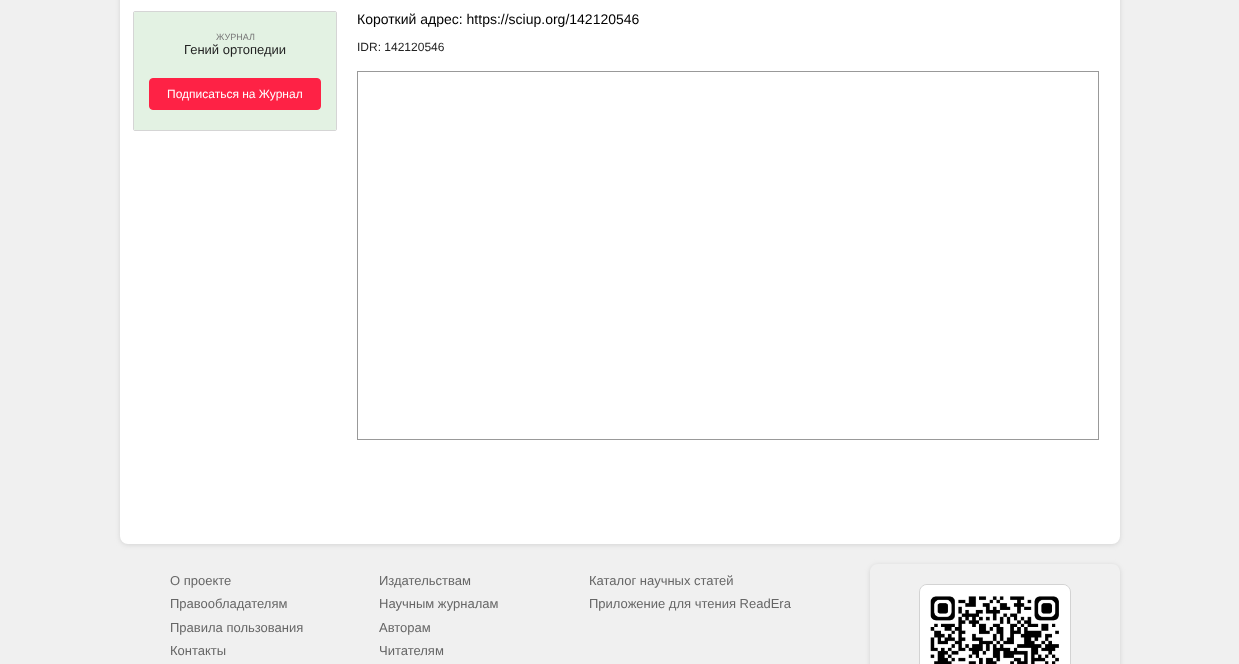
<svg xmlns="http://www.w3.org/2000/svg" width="1239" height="664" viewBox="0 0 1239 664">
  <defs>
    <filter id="blur1" x="-50%" y="-200%" width="200%" height="500%"><feGaussianBlur stdDeviation="2.5"/></filter>
    <clipPath id="clip1"><path d="M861 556H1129V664H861ZM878 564H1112C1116.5 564 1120 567.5 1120 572V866C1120 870.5 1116.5 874 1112 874H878C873.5 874 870 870.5 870 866V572C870 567.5 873.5 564 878 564Z" clip-rule="evenodd"/></clipPath>
  </defs>
  <rect width="100%" height="100%" fill="#f0f0f0"/>
  <rect x="120" y="-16" width="1000" height="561" rx="8" fill="#d4d4d4" filter="url(#blur1)"/>
  <rect x="120" y="-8" width="1000" height="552" rx="8" fill="#ffffff"/>
  <rect x="133.5" y="11.5" width="203" height="119" rx="1.5" fill="none" stroke="#d5d5d5"/>
  <rect x="134" y="12" width="202" height="118" rx="1" fill="#e3f2e3"/>
  <text x="216" y="40" font-family="Liberation Sans" font-size="9" fill="#777777">ЖУРНАЛ</text>
  <text x="184" y="54" font-family="Liberation Sans" font-size="13" fill="#232323">Гений ортопедии</text>
  <rect x="149.5" y="78.5" width="171" height="31" rx="3.5" fill="#fe2245" stroke="#fe2245"/>
  <text x="167" y="98" font-family="Liberation Sans" font-size="12" fill="#ffffff">Подписаться на Журнал</text>
  <text x="357" y="24" font-family="Liberation Sans" font-size="14" fill="#000000">Короткий адрес: https://sciup.org/142120546</text>
  <text x="357" y="51" font-family="Liberation Sans" font-size="12" fill="#232323">IDR: 142120546</text>
  <rect x="357.5" y="71.5" width="741" height="368" fill="none" stroke="#999999"/>
  <text x="170" y="585" font-family="Liberation Sans" font-size="13" fill="#666666">О проекте</text>
  <text x="170" y="608" font-family="Liberation Sans" font-size="13" fill="#666666">Правообладателям</text>
  <text x="170" y="632" font-family="Liberation Sans" font-size="13" fill="#666666">Правила пользования</text>
  <text x="170" y="655" font-family="Liberation Sans" font-size="13" fill="#666666">Контакты</text>
  <text x="379" y="585" font-family="Liberation Sans" font-size="13" fill="#666666">Издательствам</text>
  <text x="379" y="608" font-family="Liberation Sans" font-size="13" fill="#666666">Научным журналам</text>
  <text x="379" y="632" font-family="Liberation Sans" font-size="13" fill="#666666">Авторам</text>
  <text x="379" y="655" font-family="Liberation Sans" font-size="13" fill="#666666">Читателям</text>
  <text x="589" y="585" font-family="Liberation Sans" font-size="13" fill="#666666">Каталог научных статей</text>
  <text x="589" y="608" font-family="Liberation Sans" font-size="13" fill="#666666">Приложение для чтения ReadEra</text>
  <g clip-path="url(#clip1)">
    <rect x="870" y="565" width="250" height="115" rx="8" fill="#d1d1d1" filter="url(#blur1)"/>
  </g>
  <rect x="919.5" y="584.5" width="151" height="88" rx="7.5" fill="none" stroke="#d3d3d3"/>
  <image x="920" y="585" width="150" height="79" href="img1.png"/>
</svg>
